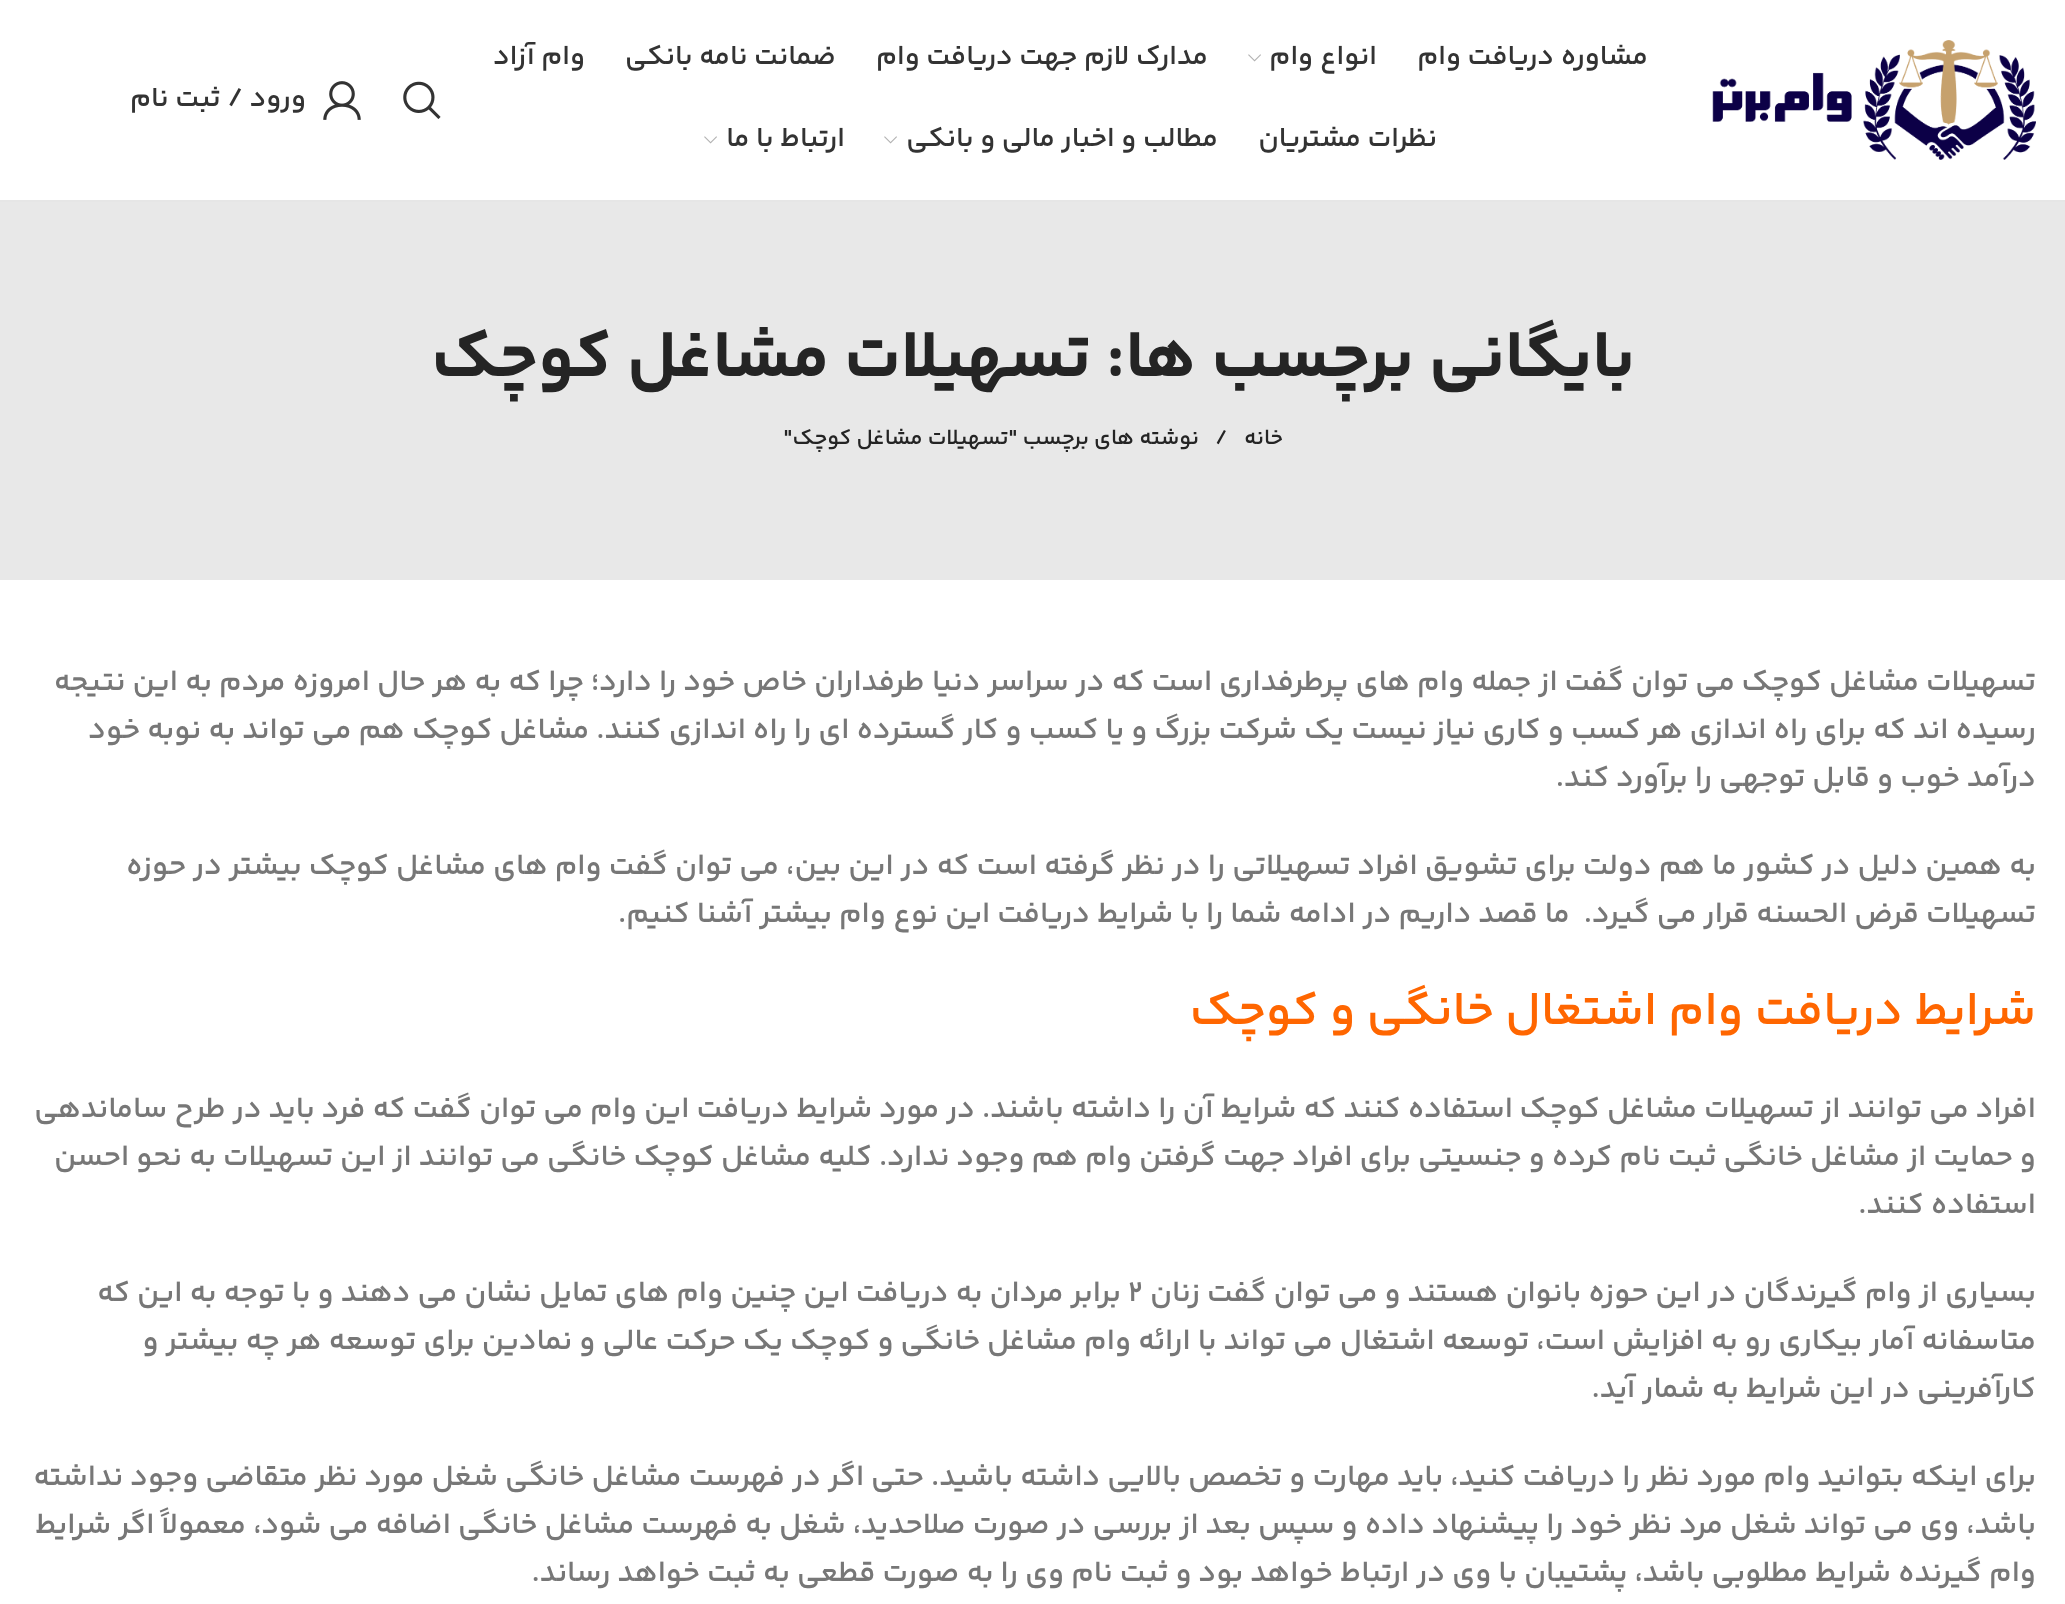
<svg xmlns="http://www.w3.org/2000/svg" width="2065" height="1604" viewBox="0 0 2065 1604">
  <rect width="100%" height="100%" fill="#ffffff"/>
  <rect x="0" y="200" width="2065" height="2" fill="#e6e6e6"/>
  <image x="1712" y="40" width="324" height="120" href="img1.png"/>
  <text x="1648" y="64" font-family="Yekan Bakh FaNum" font-size="28" font-weight="600" direction="rtl" fill="#333333">مشاوره دریافت وام</text>
  <text x="1377" y="64" font-family="Yekan Bakh FaNum" font-size="28" font-weight="600" direction="rtl" fill="#333333">انواع وام</text>
  <image x="1248" y="54" width="13" height="8" href="img2.png"/>
  <text x="1208" y="64" font-family="Yekan Bakh FaNum" font-size="28" font-weight="600" direction="rtl" fill="#333333">مدارک لازم جهت دریافت وام</text>
  <text x="836" y="64" font-family="Yekan Bakh FaNum" font-size="28" font-weight="600" direction="rtl" fill="#333333">ضمانت نامه بانکی</text>
  <text x="585" y="64" font-family="Yekan Bakh FaNum" font-size="28" font-weight="600" direction="rtl" fill="#333333">وام آزاد</text>
  <text x="1437" y="146" font-family="Yekan Bakh FaNum" font-size="28" font-weight="600" direction="rtl" fill="#333333">نظرات مشتریان</text>
  <text x="1218" y="146" font-family="Yekan Bakh FaNum" font-size="28" font-weight="600" direction="rtl" fill="#333333">مطالب و اخبار مالی و بانکی</text>
  <image x="884" y="136" width="13" height="8" href="img2.png"/>
  <text x="845" y="146" font-family="Yekan Bakh FaNum" font-size="28" font-weight="600" direction="rtl" fill="#333333">ارتباط با ما</text>
  <image x="704" y="136" width="13" height="8" href="img2.png"/>
  <image x="403" y="81" width="38" height="38" href="img3.png"/>
  <image x="323" y="81" width="38" height="39" href="img4.png"/>
  <text x="306" y="106" font-family="Yekan Bakh FaNum" font-size="28" font-weight="600" direction="rtl" fill="#333333">ورود / ثبت نام</text>
  <rect x="0" y="202" width="2065" height="378" fill="#e8e8e8"/>
  <text x="1635" y="376" font-family="Yekan Bakh FaNum" font-size="68" font-weight="bold" direction="rtl" fill="#242424">بایگانی برچسب ها: تسهیلات مشاغل کوچک</text>
  <text x="1283" y="444" font-family="Yekan Bakh FaNum" font-size="22" font-weight="600" direction="rtl" fill="#242424">خانه</text>
  <text x="1215" y="444" font-family="Yekan Bakh FaNum" font-size="22" font-weight="600" fill="#242424">/</text>
  <text x="1199" y="444" font-family="Yekan Bakh FaNum" font-size="22" font-weight="600" direction="rtl" fill="#242424">نوشته های برچسب "تسهیلات مشاغل کوچک"</text>
  <text x="2036" y="690" font-family="Yekan Bakh FaNum" font-size="30" font-weight="600" direction="rtl" fill="#777777">تسهیلات مشاغل کوچک</text>
  <text x="1735" y="690" font-family="Yekan Bakh FaNum" font-size="30" font-weight="600" direction="rtl" fill="#777777">می توان گفت از جمله وام های پرطرفداری است که در سراسر دنیا طرفداران خاص خود را دارد؛ چرا که به هر حال امروزه مردم به این نتیجه</text>
  <text x="2036" y="738" font-family="Yekan Bakh FaNum" font-size="30" font-weight="600" direction="rtl" fill="#777777">رسیده اند که برای راه اندازی هر کسب و کاری نیاز نیست یک شرکت بزرگ و یا کسب و کار گسترده ای را راه اندازی کنند. مشاغل کوچک هم می تواند به نوبه خود</text>
  <text x="2036" y="786" font-family="Yekan Bakh FaNum" font-size="30" font-weight="600" direction="rtl" fill="#777777">درآمد خوب و قابل توجهی را برآورد کند.</text>
  <text x="2036" y="874" font-family="Yekan Bakh FaNum" font-size="30" font-weight="600" direction="rtl" fill="#777777">به همین دلیل در کشور ما هم دولت برای تشویق افراد تسهیلاتی را در نظر گرفته است که در این بین، می توان گفت وام های مشاغل کوچک بیشتر در حوزه</text>
  <text x="2036" y="922" font-family="Yekan Bakh FaNum" font-size="30" font-weight="600" direction="rtl" fill="#777777" xml:space="preserve">تسهیلات قرض الحسنه قرار می گیرد.  ما قصد داریم در ادامه شما را با شرایط دریافت این نوع وام بیشتر آشنا کنیم.</text>
  <text x="2036" y="1024" font-family="Yekan Bakh FaNum" font-size="48" font-weight="600" direction="rtl" fill="#ff6600">شرایط دریافت وام اشتغال خانگی و کوچک</text>
  <text x="2036" y="1117" font-family="Yekan Bakh FaNum" font-size="30" font-weight="600" direction="rtl" fill="#777777">افراد می توانند از</text>
  <text x="1814" y="1117" font-family="Yekan Bakh FaNum" font-size="30" font-weight="600" direction="rtl" fill="#777777">تسهیلات مشاغل کوچک</text>
  <text x="1513" y="1117" font-family="Yekan Bakh FaNum" font-size="30" font-weight="600" direction="rtl" fill="#777777">استفاده کنند که شرایط آن را داشته باشند. در مورد شرایط دریافت این وام می توان گفت که فرد باید در طرح ساماندهی</text>
  <text x="2036" y="1165" font-family="Yekan Bakh FaNum" font-size="30" font-weight="600" direction="rtl" fill="#777777">و حمایت از مشاغل خانگی ثبت نام کرده و جنسیتی برای افراد جهت گرفتن وام هم وجود ندارد. کلیه مشاغل کوچک خانگی می توانند از این تسهیلات به نحو احسن</text>
  <text x="2036" y="1213" font-family="Yekan Bakh FaNum" font-size="30" font-weight="600" direction="rtl" fill="#777777">استفاده کنند.</text>
  <text x="2036" y="1301" font-family="Yekan Bakh FaNum" font-size="30" font-weight="600" direction="rtl" fill="#777777">بسیاری از وام گیرندگان در این حوزه بانوان هستند و می توان گفت زنان</text>
  <text x="1128" y="1301" font-family="Yekan Bakh FaNum" font-size="30" font-weight="600" fill="#777777">2</text>
  <text x="1121" y="1301" font-family="Yekan Bakh FaNum" font-size="30" font-weight="600" direction="rtl" fill="#777777">برابر مردان به دریافت این چنین وام های تمایل نشان می دهند و با توجه به این که</text>
  <text x="2036" y="1349" font-family="Yekan Bakh FaNum" font-size="30" font-weight="600" direction="rtl" fill="#777777">متاسفانه آمار بیکاری رو به افزایش است، توسعه اشتغال می تواند با ارائه وام مشاغل خانگی و کوچک یک حرکت عالی و نمادین برای توسعه هر چه بیشتر و</text>
  <text x="2036" y="1397" font-family="Yekan Bakh FaNum" font-size="30" font-weight="600" direction="rtl" fill="#777777">کارآفرینی در این شرایط به شمار آید.</text>
  <text x="2036" y="1485" font-family="Yekan Bakh FaNum" font-size="30" font-weight="600" direction="rtl" fill="#777777">برای اینکه بتوانید وام مورد نظر را دریافت کنید، باید مهارت و تخصص بالایی داشته باشید. حتی اگر در فهرست مشاغل خانگی شغل مورد نظر متقاضی وجود نداشته</text>
  <text x="2036" y="1533" font-family="Yekan Bakh FaNum" font-size="30" font-weight="600" direction="rtl" fill="#777777">باشد، وی می تواند شغل مرد نظر خود را پیشنهاد داده و سپس بعد از بررسی در صورت صلاحدید، شغل به فهرست مشاغل خانگی اضافه می شود، معمولاً اگر شرایط</text>
  <text x="2036" y="1581" font-family="Yekan Bakh FaNum" font-size="30" font-weight="600" direction="rtl" fill="#777777">وام گیرنده شرایط مطلوبی باشد، پشتیبان با وی در ارتباط خواهد بود و ثبت نام وی را به صورت قطعی به ثبت خواهد رساند.</text>
</svg>
